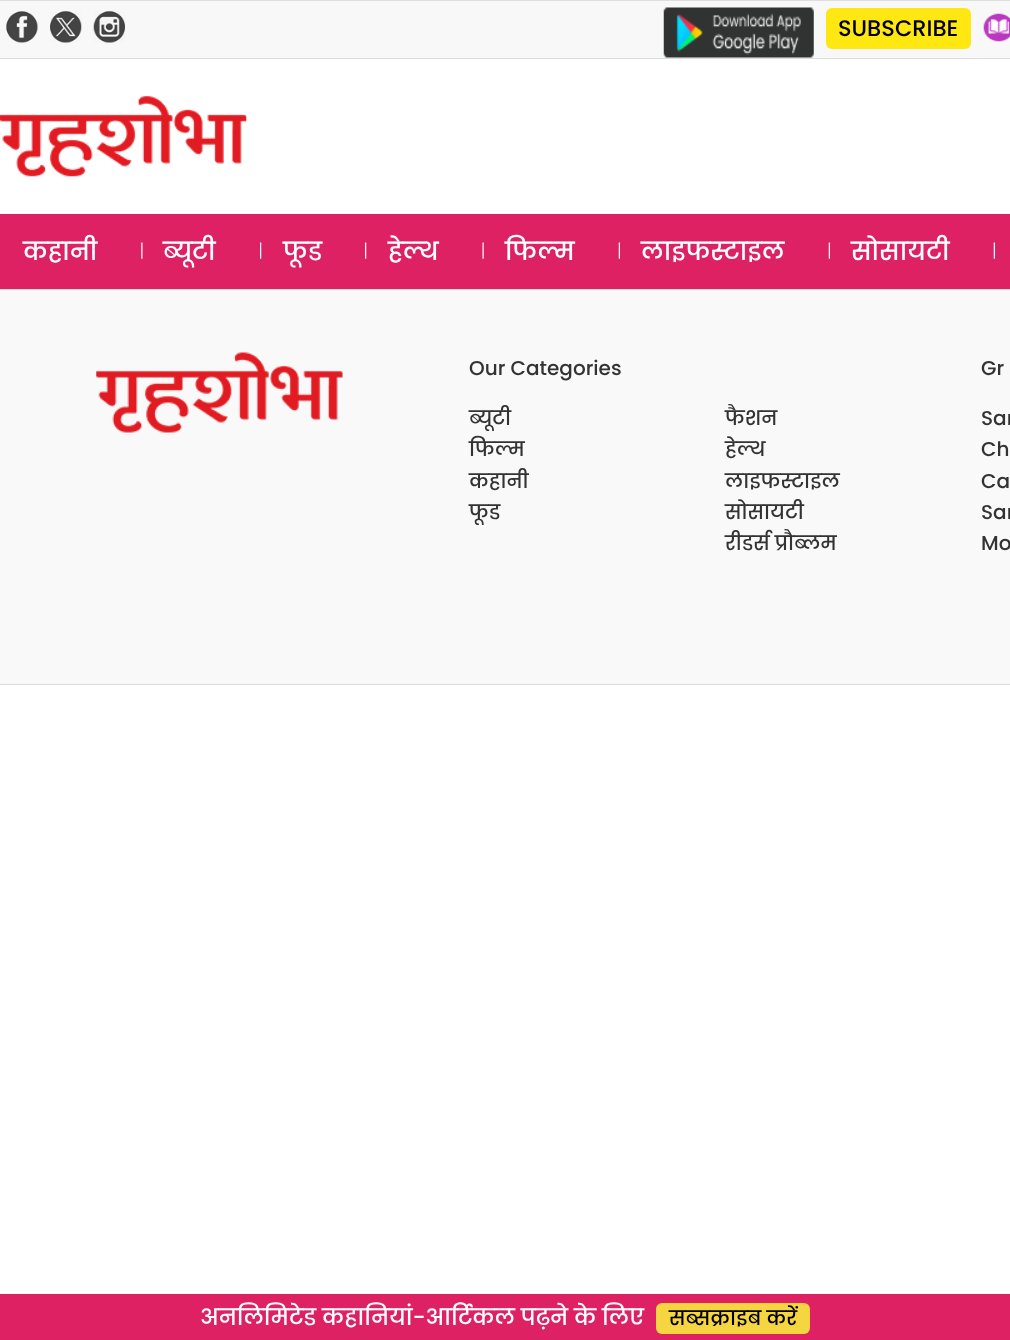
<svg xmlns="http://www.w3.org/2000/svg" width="1010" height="1340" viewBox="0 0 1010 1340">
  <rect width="100%" height="100%" fill="#ffffff"/>
  <rect x="0" y="1" width="1010" height="57" fill="#f8f8f8"/>
  <rect x="0" y="0" width="1010" height="1" fill="#dedede"/>
  <rect x="0" y="58" width="1010" height="1" fill="#dedede"/>
  <image x="6" y="11" width="32" height="32" href="img1.png"/>
  <image x="50" y="11" width="32" height="32" href="img2.png"/>
  <image x="93" y="11" width="32" height="32" href="img3.png"/>
  <image x="663" y="7" width="151" height="51" href="img4.png"/>
  <rect x="826" y="8" width="145" height="41" rx="6" fill="#ffe712"/>
  <text x="838" y="36" font-family="Poppins" font-size="22.5" font-weight="500" fill="#000000">SUBSCRIBE</text>
  <image x="983" y="13" width="27" height="29" href="img5.png"/>
  <image x="0" y="96" width="247" height="81" href="img6.png"/>
  <rect x="0" y="214" width="1010" height="75" fill="#dd2163"/>
  <text x="23" y="260" font-family="Poppins" font-size="25" font-weight="500" fill="#ffffff">कहानी</text>
  <image x="141" y="242" width="2" height="17" href="img7.png"/>
  <text x="163" y="260" font-family="Poppins" font-size="25" font-weight="500" fill="#ffffff">ब्यूटी</text>
  <image x="260" y="242" width="2" height="17" href="img8.png"/>
  <text x="283" y="260" font-family="Poppins" font-size="25" font-weight="500" fill="#ffffff">फूड</text>
  <image x="365" y="242" width="2" height="17" href="img8.png"/>
  <text x="388" y="260" font-family="Poppins" font-size="25" font-weight="500" fill="#ffffff">हेल्थ</text>
  <image x="482" y="242" width="2" height="17" href="img9.png"/>
  <text x="505" y="260" font-family="Poppins" font-size="25" font-weight="500" fill="#ffffff">फिल्म</text>
  <image x="618" y="242" width="2" height="17" href="img10.png"/>
  <text x="641" y="260" font-family="Poppins" font-size="25" font-weight="500" fill="#ffffff">लाइफस्टाइल</text>
  <image x="828" y="242" width="2" height="17" href="img10.png"/>
  <text x="851" y="260" font-family="Poppins" font-size="25" font-weight="500" fill="#ffffff">सोसायटी</text>
  <image x="993" y="242" width="2" height="17" href="img10.png"/>
  <rect x="0" y="290" width="1010" height="394" fill="#f9f9f9"/>
  <rect x="0" y="289" width="1010" height="1" fill="#dbdbdb"/>
  <rect x="0" y="684" width="1010" height="1" fill="#dbdbdb"/>
  <image x="96" y="352" width="247" height="81" href="img11.png"/>
  <text x="469" y="375" font-family="Poppins" font-size="20" font-weight="500" fill="#333333">Our Categories</text>
  <text x="469" y="425" font-family="Poppins" font-size="20" font-weight="500" fill="#333333">ब्यूटी</text>
  <text x="469" y="456" font-family="Poppins" font-size="20" font-weight="500" fill="#333333">फिल्म</text>
  <text x="469" y="488" font-family="Poppins" font-size="20" font-weight="500" fill="#333333">कहानी</text>
  <text x="469" y="519" font-family="Poppins" font-size="20" font-weight="500" fill="#333333">फूड</text>
  <text x="725" y="425" font-family="Poppins" font-size="20" font-weight="500" fill="#333333">फैशन</text>
  <text x="725" y="456" font-family="Poppins" font-size="20" font-weight="500" fill="#333333">हेल्थ</text>
  <text x="725" y="488" font-family="Poppins" font-size="20" font-weight="500" fill="#333333">लाइफस्टाइल</text>
  <text x="725" y="519" font-family="Poppins" font-size="20" font-weight="500" fill="#333333">सोसायटी</text>
  <text x="725" y="550" font-family="Poppins" font-size="20" font-weight="500" fill="#333333">रीडर्स प्रौब्लम</text>
  <text x="981" y="375" font-family="Poppins" font-size="20" font-weight="500" fill="#333333">Gr</text>
  <text x="981" y="425" font-family="Poppins" font-size="20" font-weight="500" fill="#333333">Sar</text>
  <text x="981" y="456" font-family="Poppins" font-size="20" font-weight="500" fill="#333333">Ch</text>
  <text x="981" y="488" font-family="Poppins" font-size="20" font-weight="500" fill="#333333">Ca</text>
  <text x="981" y="519" font-family="Poppins" font-size="20" font-weight="500" fill="#333333">Sar</text>
  <text x="981" y="550" font-family="Poppins" font-size="20" font-weight="500" fill="#333333">Mo</text>
  <rect x="0" y="1294" width="1010" height="46" fill="#dd2163"/>
  <text x="200" y="1325" font-family="Poppins" font-size="22.5" font-weight="500" fill="#ffffff">अनलिमिटेड कहानियां-आर्टिकल पढ़ने के लिए</text>
  <rect x="656" y="1303" width="154" height="31" rx="6" fill="#f5d540"/>
  <text x="669" y="1325" font-family="Poppins" font-size="20" font-weight="500" fill="#000000">सब्सक्राइब करें</text>
</svg>
